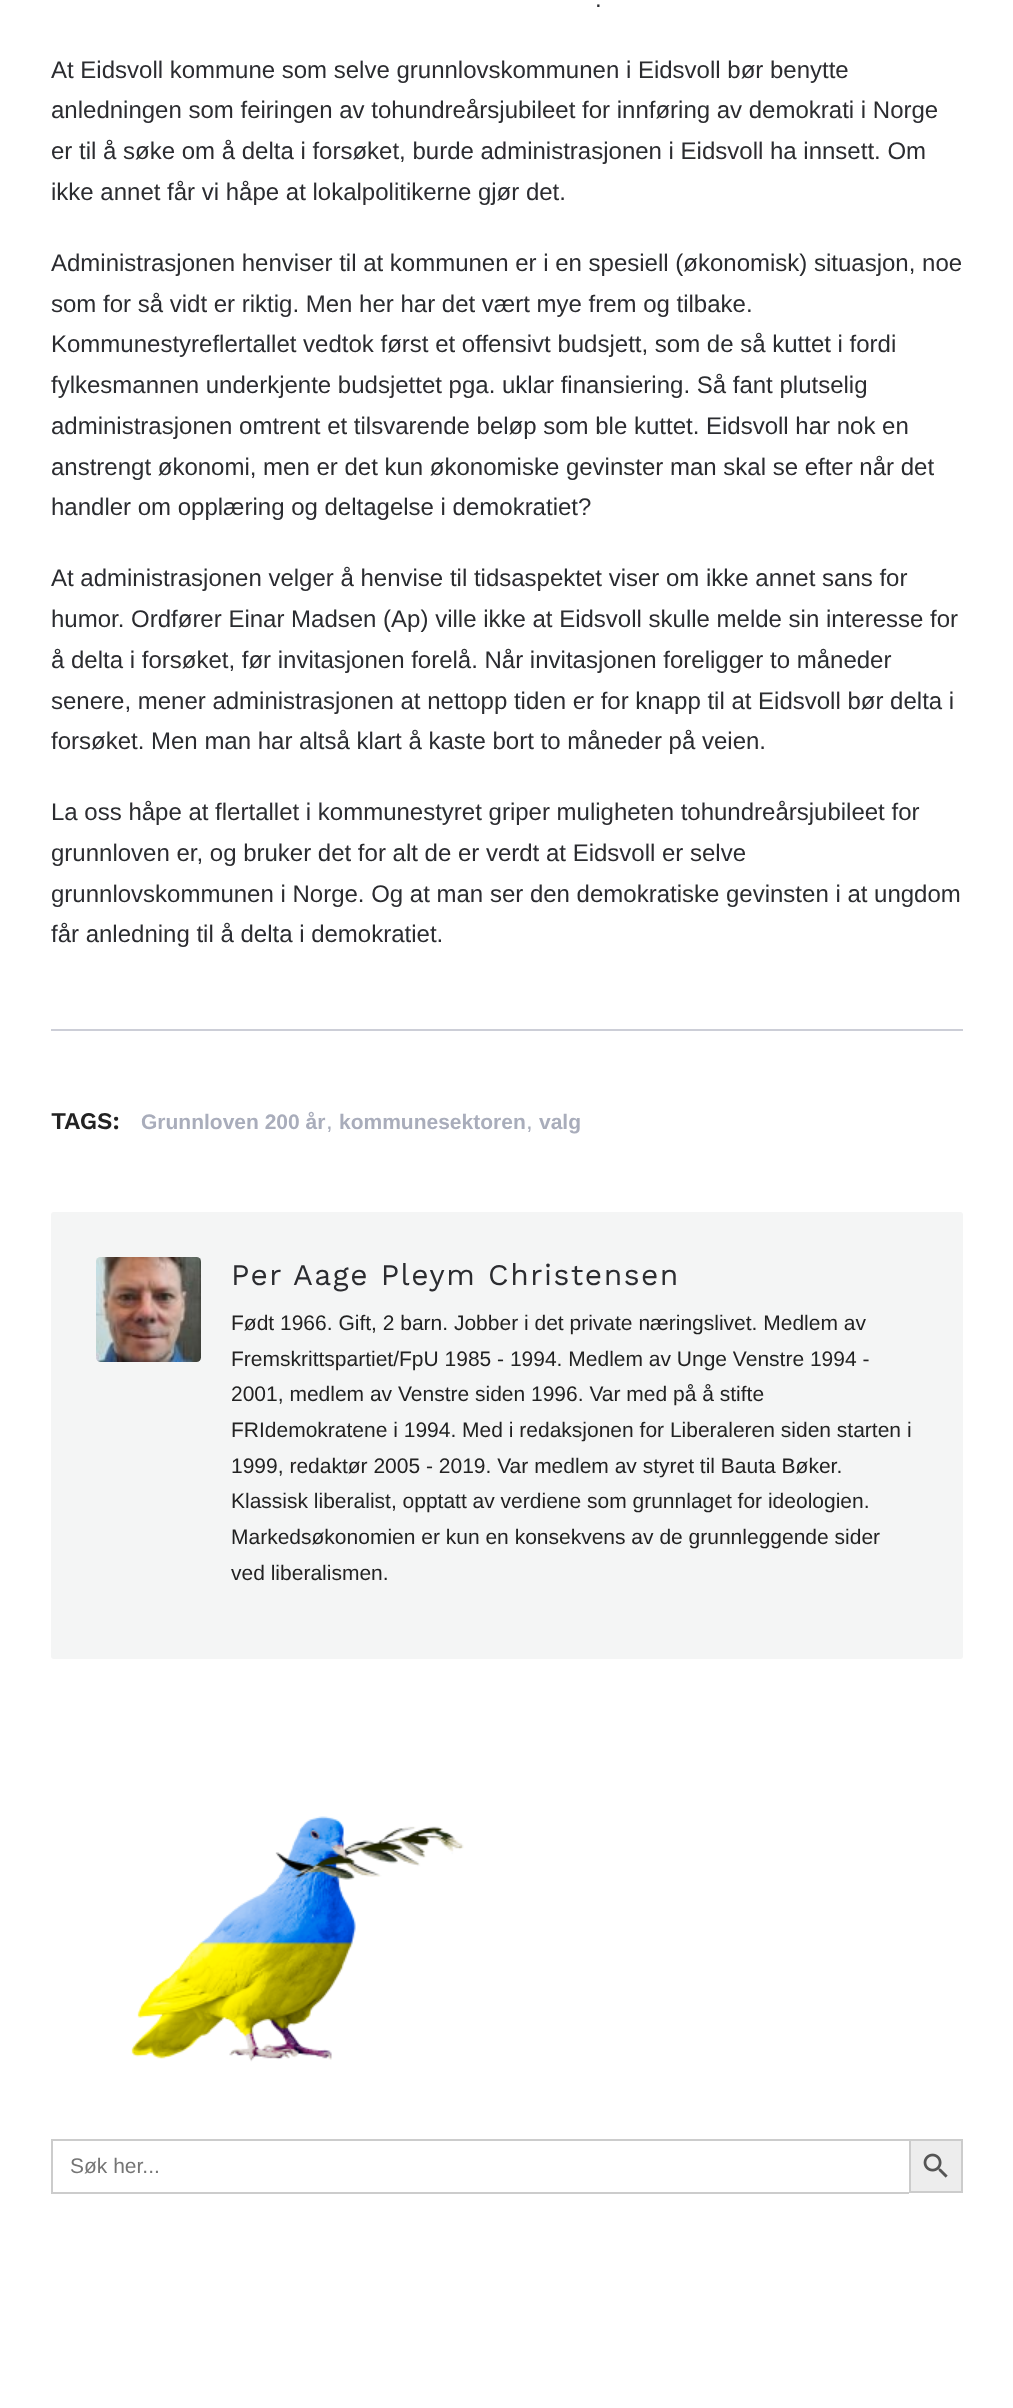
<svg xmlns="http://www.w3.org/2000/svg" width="1013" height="2408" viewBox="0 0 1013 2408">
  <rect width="100%" height="100%" fill="#ffffff"/>
  <rect x="51" y="1029" width="912" height="2" fill="#ccced7"/>
  <text x="595" y="7" font-family="Liberation Sans" font-size="24" fill="#2b2c30">.</text>
  <text x="51" y="78" font-family="Liberation Sans" font-size="24" fill="#2b2c30">At Eidsvoll kommune som selve grunnlovskommunen i Eidsvoll bør benytte</text>
  <text x="51" y="118" font-family="Liberation Sans" font-size="24" fill="#2b2c30">anledningen som feiringen av tohundreårsjubileet for innføring av demokrati i Norge</text>
  <text x="51" y="159" font-family="Liberation Sans" font-size="24" fill="#2b2c30">er til å søke om å delta i forsøket, burde administrasjonen i Eidsvoll ha innsett. Om</text>
  <text x="51" y="200" font-family="Liberation Sans" font-size="24" fill="#2b2c30">ikke annet får vi håpe at lokalpolitikerne gjør det.</text>
  <text x="51" y="271" font-family="Liberation Sans" font-size="24" fill="#2b2c30">Administrasjonen henviser til at kommunen er i en spesiell (økonomisk) situasjon, noe</text>
  <text x="51" y="312" font-family="Liberation Sans" font-size="24" fill="#2b2c30">som for så vidt er riktig. Men her har det vært mye frem og tilbake.</text>
  <text x="51" y="352" font-family="Liberation Sans" font-size="24" fill="#2b2c30">Kommunestyreflertallet vedtok først et offensivt budsjett, som de så kuttet i fordi</text>
  <text x="51" y="393" font-family="Liberation Sans" font-size="24" fill="#2b2c30">fylkesmannen underkjente budsjettet pga. uklar finansiering. Så fant plutselig</text>
  <text x="51" y="434" font-family="Liberation Sans" font-size="24" fill="#2b2c30">administrasjonen omtrent et tilsvarende beløp som ble kuttet. Eidsvoll har nok en</text>
  <text x="51" y="475" font-family="Liberation Sans" font-size="24" fill="#2b2c30">anstrengt økonomi, men er det kun økonomiske gevinster man skal se efter når det</text>
  <text x="51" y="515" font-family="Liberation Sans" font-size="24" fill="#2b2c30">handler om opplæring og deltagelse i demokratiet?</text>
  <text x="51" y="586" font-family="Liberation Sans" font-size="24" fill="#2b2c30">At administrasjonen velger å henvise til tidsaspektet viser om ikke annet sans for</text>
  <text x="51" y="627" font-family="Liberation Sans" font-size="24" fill="#2b2c30">humor. Ordfører Einar Madsen (Ap) ville ikke at Eidsvoll skulle melde sin interesse for</text>
  <text x="51" y="668" font-family="Liberation Sans" font-size="24" fill="#2b2c30">å delta i forsøket, før invitasjonen forelå. Når invitasjonen foreligger to måneder</text>
  <text x="51" y="709" font-family="Liberation Sans" font-size="24" fill="#2b2c30">senere, mener administrasjonen at nettopp tiden er for knapp til at Eidsvoll bør delta i</text>
  <text x="51" y="749" font-family="Liberation Sans" font-size="24" fill="#2b2c30">forsøket. Men man har altså klart å kaste bort to måneder på veien.</text>
  <text x="51" y="820" font-family="Liberation Sans" font-size="24" fill="#2b2c30">La oss håpe at flertallet i kommunestyret griper muligheten tohundreårsjubileet for</text>
  <text x="51" y="861" font-family="Liberation Sans" font-size="24" fill="#2b2c30">grunnloven er, og bruker det for alt de er verdt at Eidsvoll er selve</text>
  <text x="51" y="902" font-family="Liberation Sans" font-size="24" fill="#2b2c30">grunnlovskommunen i Norge. Og at man ser den demokratiske gevinsten i at ungdom</text>
  <text x="51" y="942" font-family="Liberation Sans" font-size="24" fill="#2b2c30">får anledning til å delta i demokratiet.</text>
  <text x="51" y="1129" font-family="Work Sans" font-size="24" font-weight="600" fill="#222222">TAGS:</text>
  <text x="141" y="1129" font-family="Liberation Sans" font-size="21" font-weight="bold" fill="#a9adbb">Grunnloven 200 år</text>
  <text x="326" y="1129" font-family="Liberation Sans" font-size="24" fill="#a9adbb">,</text>
  <text x="339" y="1129" font-family="Liberation Sans" font-size="21" font-weight="bold" fill="#a9adbb">kommunesektoren</text>
  <text x="526" y="1129" font-family="Liberation Sans" font-size="24" fill="#a9adbb">,</text>
  <text x="539" y="1129" font-family="Liberation Sans" font-size="21" font-weight="bold" fill="#a9adbb">valg</text>
  <rect x="51" y="1212" width="912" height="447" rx="3" fill="#f4f5f5"/>
  <image x="96" y="1257" width="105" height="105" href="img1.png"/>
  <text x="231" y="1285" font-family="Work Sans" font-size="30" letter-spacing="1.5" fill="#2b2c30">Per Aage Pleym Christensen</text>
  <text x="231" y="1330" font-family="Liberation Sans" font-size="21" fill="#222222">Født 1966. Gift, 2 barn. Jobber i det private næringslivet. Medlem av</text>
  <text x="231" y="1366" font-family="Liberation Sans" font-size="21" fill="#222222">Fremskrittspartiet/FpU 1985 - 1994. Medlem av Unge Venstre 1994 -</text>
  <text x="231" y="1401" font-family="Liberation Sans" font-size="21" fill="#222222">2001, medlem av Venstre siden 1996. Var med på å stifte</text>
  <text x="231" y="1437" font-family="Liberation Sans" font-size="21" fill="#222222">FRIdemokratene i 1994. Med i redaksjonen for Liberaleren siden starten i</text>
  <text x="231" y="1473" font-family="Liberation Sans" font-size="21" fill="#222222">1999, redaktør 2005 - 2019. Var medlem av styret til Bauta Bøker.</text>
  <text x="231" y="1508" font-family="Liberation Sans" font-size="21" fill="#222222">Klassisk liberalist, opptatt av verdiene som grunnlaget for ideologien.</text>
  <text x="231" y="1544" font-family="Liberation Sans" font-size="21" fill="#222222">Markedsøkonomien er kun en konsekvens av de grunnleggende sider</text>
  <text x="231" y="1580" font-family="Liberation Sans" font-size="21" fill="#222222">ved liberalismen.</text>
  <image x="131" y="1816" width="333" height="246" href="img2.png"/>
  <rect x="51" y="2139" width="858" height="2" fill="#cccccc"/>
  <rect x="51" y="2192" width="858" height="2" fill="#cccccc"/>
  <rect x="51" y="2139" width="2" height="54" fill="#cccccc"/>
  <text x="70" y="2173" font-family="Liberation Sans" font-size="21" fill="#757575">Søk her...</text>
  <rect x="910" y="2140" width="52" height="52" fill="#ededed" stroke="#cccccc" stroke-width="2"/>
  <image x="923" y="2153" width="25" height="25" href="img3.png"/>
</svg>
